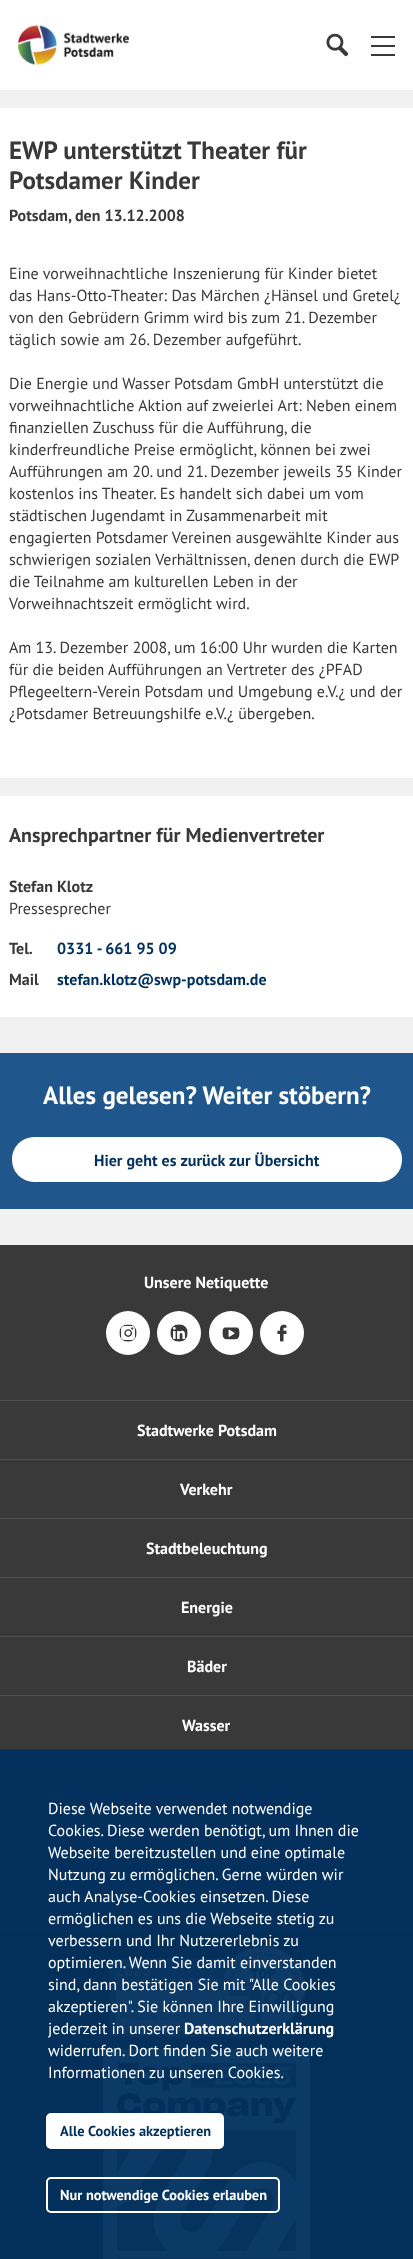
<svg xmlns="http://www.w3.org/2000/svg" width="413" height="2259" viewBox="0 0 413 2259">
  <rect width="100%" height="100%" fill="#f1f1f1"/>
  <rect x="0" y="0" width="413" height="90" fill="#ffffff"/>
  <image x="18" y="25" width="111" height="40" href="img1.png"/>
  <image x="326" y="33" width="23" height="24" href="img2.png"/>
  <rect x="371" y="36" width="24" height="2" fill="#393939"/>
  <rect x="371" y="45" width="24" height="2" fill="#393939"/>
  <rect x="371" y="54" width="24" height="2" fill="#393939"/>
  <rect x="0" y="108" width="413" height="670" fill="#ffffff"/>
  <text x="9" y="159" font-family="PT Sans" font-size="25" font-weight="bold" fill="#393939">EWP unterstützt Theater für</text>
  <text x="9" y="189" font-family="PT Sans" font-size="25" font-weight="bold" fill="#393939">Potsdamer Kinder</text>
  <text x="9" y="221" font-family="PT Sans" font-size="16" font-weight="bold" fill="#393939">Potsdam, den 13.12.2008</text>
  <text x="9" y="279" font-family="PT Sans" font-size="16" fill="#393939">Eine vorweihnachtliche Inszenierung für Kinder bietet</text>
  <text x="9" y="301" font-family="PT Sans" font-size="16" fill="#393939">das Hans-Otto-Theater: Das Märchen ¿Hänsel und Gretel¿</text>
  <text x="9" y="323" font-family="PT Sans" font-size="16" fill="#393939">von den Gebrüdern Grimm wird bis zum 21. Dezember</text>
  <text x="9" y="345" font-family="PT Sans" font-size="16" fill="#393939">täglich sowie am 26. Dezember aufgeführt.</text>
  <text x="9" y="389" font-family="PT Sans" font-size="16" fill="#393939">Die Energie und Wasser Potsdam GmbH unterstützt die</text>
  <text x="9" y="411" font-family="PT Sans" font-size="16" fill="#393939">vorweihnachtliche Aktion auf zweierlei Art: Neben einem</text>
  <text x="9" y="433" font-family="PT Sans" font-size="16" fill="#393939">finanziellen Zuschuss für die Aufführung, die</text>
  <text x="9" y="455" font-family="PT Sans" font-size="16" fill="#393939">kinderfreundliche Preise ermöglicht, können bei zwei</text>
  <text x="9" y="477" font-family="PT Sans" font-size="16" fill="#393939">Aufführungen am 20. und 21. Dezember jeweils 35 Kinder</text>
  <text x="9" y="499" font-family="PT Sans" font-size="16" fill="#393939">kostenlos ins Theater. Es handelt sich dabei um vom</text>
  <text x="9" y="521" font-family="PT Sans" font-size="16" fill="#393939">städtischen Jugendamt in Zusammenarbeit mit</text>
  <text x="9" y="543" font-family="PT Sans" font-size="16" fill="#393939">engagierten Potsdamer Vereinen ausgewählte Kinder aus</text>
  <text x="9" y="565" font-family="PT Sans" font-size="16" fill="#393939">schwierigen sozialen Verhältnissen, denen durch die EWP</text>
  <text x="9" y="587" font-family="PT Sans" font-size="16" fill="#393939">die Teilnahme am kulturellen Leben in der</text>
  <text x="9" y="609" font-family="PT Sans" font-size="16" fill="#393939">Vorweihnachtszeit ermöglicht wird.</text>
  <text x="9" y="653" font-family="PT Sans" font-size="16" fill="#393939">Am 13. Dezember 2008, um 16:00 Uhr wurden die Karten</text>
  <text x="9" y="675" font-family="PT Sans" font-size="16" fill="#393939">für die beiden Aufführungen an Vertreter des ¿PFAD</text>
  <text x="9" y="697" font-family="PT Sans" font-size="16" fill="#393939">Pflegeeltern-Verein Potsdam und Umgebung e.V.¿ und der</text>
  <text x="9" y="719" font-family="PT Sans" font-size="16" fill="#393939">¿Potsdamer Betreuungshilfe e.V.¿ übergeben.</text>
  <rect x="0" y="796" width="413" height="221" fill="#ffffff"/>
  <text x="9" y="842" font-family="PT Sans" font-size="20" font-weight="bold" fill="#393939">Ansprechpartner für Medienvertreter</text>
  <text x="9" y="892" font-family="PT Sans" font-size="16" font-weight="bold" fill="#393939">Stefan Klotz</text>
  <text x="9" y="914" font-family="PT Sans" font-size="16" fill="#393939">Pressesprecher</text>
  <text x="9" y="954" font-family="PT Sans" font-size="16" font-weight="bold" fill="#393939">Tel.</text>
  <text x="57" y="954" font-family="PT Sans" font-size="16" font-weight="bold" fill="#00305e">0331 - 661 95 09</text>
  <text x="9" y="985" font-family="PT Sans" font-size="16" font-weight="bold" fill="#393939">Mail</text>
  <text x="57" y="985" font-family="PT Sans" font-size="16" font-weight="bold" fill="#00305e">stefan.klotz@swp-potsdam.de</text>
  <rect x="0" y="1053" width="413" height="156" fill="#1f578c"/>
  <text x="43" y="1104" font-family="PT Sans" font-size="25" font-weight="bold" fill="#ffffff">Alles gelesen? Weiter stöbern?</text>
  <rect x="12" y="1137" width="390" height="45" rx="22" fill="#ffffff"/>
  <text x="94" y="1166" font-family="PT Sans" font-size="16" font-weight="bold" fill="#00305e">Hier geht es zurück zur Übersicht</text>
  <rect x="0" y="1245" width="413" height="504" fill="#393939"/>
  <rect x="0" y="1749" width="413" height="182" fill="#03305c"/>
  <text x="144" y="1288" font-family="PT Sans" font-size="16" font-weight="bold" fill="#ffffff">Unsere Netiquette</text>
  <circle cx="128" cy="1333" r="22" fill="#ffffff"/>
  <image x="119" y="1324" width="18" height="18" href="img3.png"/>
  <circle cx="179" cy="1333" r="22" fill="#ffffff"/>
  <image x="170" y="1324" width="18" height="18" href="img4.png"/>
  <circle cx="231" cy="1333" r="22" fill="#ffffff"/>
  <image x="222" y="1327" width="18" height="13" href="img5.png"/>
  <circle cx="282" cy="1333" r="22" fill="#ffffff"/>
  <image x="277" y="1324" width="10" height="18" href="img6.png"/>
  <rect x="0" y="1400" width="413" height="1" fill="#4e4e4e"/>
  <text x="137" y="1436" font-family="PT Sans" font-size="16" font-weight="bold" fill="#ffffff">Stadtwerke Potsdam</text>
  <rect x="0" y="1459" width="413" height="1" fill="#4e4e4e"/>
  <text x="180" y="1495" font-family="PT Sans" font-size="16" font-weight="bold" fill="#ffffff">Verkehr</text>
  <rect x="0" y="1518" width="413" height="1" fill="#4e4e4e"/>
  <text x="146" y="1554" font-family="PT Sans" font-size="16" font-weight="bold" fill="#ffffff">Stadtbeleuchtung</text>
  <rect x="0" y="1577" width="413" height="1" fill="#4e4e4e"/>
  <text x="181" y="1613" font-family="PT Sans" font-size="16" font-weight="bold" fill="#ffffff">Energie</text>
  <rect x="0" y="1636" width="413" height="1" fill="#4e4e4e"/>
  <text x="187" y="1672" font-family="PT Sans" font-size="16" font-weight="bold" fill="#ffffff">Bäder</text>
  <rect x="0" y="1695" width="413" height="1" fill="#4e4e4e"/>
  <text x="182" y="1731" font-family="PT Sans" font-size="16" font-weight="bold" fill="#ffffff">Wasser</text>
  <rect x="0" y="1931" width="413" height="328" fill="#02305b"/>
  <image x="109" y="1945" width="197" height="93" href="img7.png"/>
  <image x="103" y="2049" width="207" height="210" href="img8.png"/>
  <text x="48" y="1814" font-family="PT Sans" font-size="16" fill="#ffffff">Diese Webseite verwendet notwendige</text>
  <text x="48" y="1836" font-family="PT Sans" font-size="16" fill="#ffffff">Cookies. Diese werden benötigt, um Ihnen die</text>
  <text x="48" y="1858" font-family="PT Sans" font-size="16" fill="#ffffff">Webseite bereitzustellen und eine optimale</text>
  <text x="48" y="1880" font-family="PT Sans" font-size="16" fill="#ffffff">Nutzung zu ermöglichen. Gerne würden wir</text>
  <text x="48" y="1902" font-family="PT Sans" font-size="16" fill="#ffffff">auch Analyse-Cookies einsetzen. Diese</text>
  <text x="48" y="1924" font-family="PT Sans" font-size="16" fill="#ffffff">ermöglichen es uns die Webseite stetig zu</text>
  <text x="48" y="1946" font-family="PT Sans" font-size="16" fill="#ffffff">verbessern und Ihr Nutzererlebnis zu</text>
  <text x="48" y="1968" font-family="PT Sans" font-size="16" fill="#ffffff">optimieren. Wenn Sie damit einverstanden</text>
  <text x="48" y="1990" font-family="PT Sans" font-size="16" fill="#ffffff">sind, dann bestätigen Sie mit "Alle Cookies</text>
  <text x="48" y="2012" font-family="PT Sans" font-size="16" fill="#ffffff">akzeptieren". Sie können Ihre Einwilligung</text>
  <text x="48" y="2034" font-family="PT Sans" font-size="16" fill="#ffffff">jederzeit in unserer</text>
  <text x="184" y="2034" font-family="PT Sans" font-size="16" font-weight="bold" fill="#ffffff">Datenschutzerklärung</text>
  <text x="48" y="2056" font-family="PT Sans" font-size="16" fill="#ffffff">widerrufen. Dort finden Sie auch weitere</text>
  <text x="48" y="2078" font-family="PT Sans" font-size="16" fill="#ffffff">Informationen zu unseren Cookies.</text>
  <rect x="47" y="2114" width="176" height="34" rx="4" fill="#ffffff" stroke="#ffffff" stroke-width="2"/>
  <text x="60" y="2136" font-family="PT Sans" font-size="14.4" font-weight="bold" fill="#00305e">Alle Cookies akzeptieren</text>
  <rect x="47" y="2178" width="232" height="34" rx="4" fill="none" stroke="#ffffff" stroke-width="2"/>
  <text x="60" y="2200" font-family="PT Sans" font-size="14.4" font-weight="bold" fill="#ffffff">Nur notwendige Cookies erlauben</text>
</svg>
